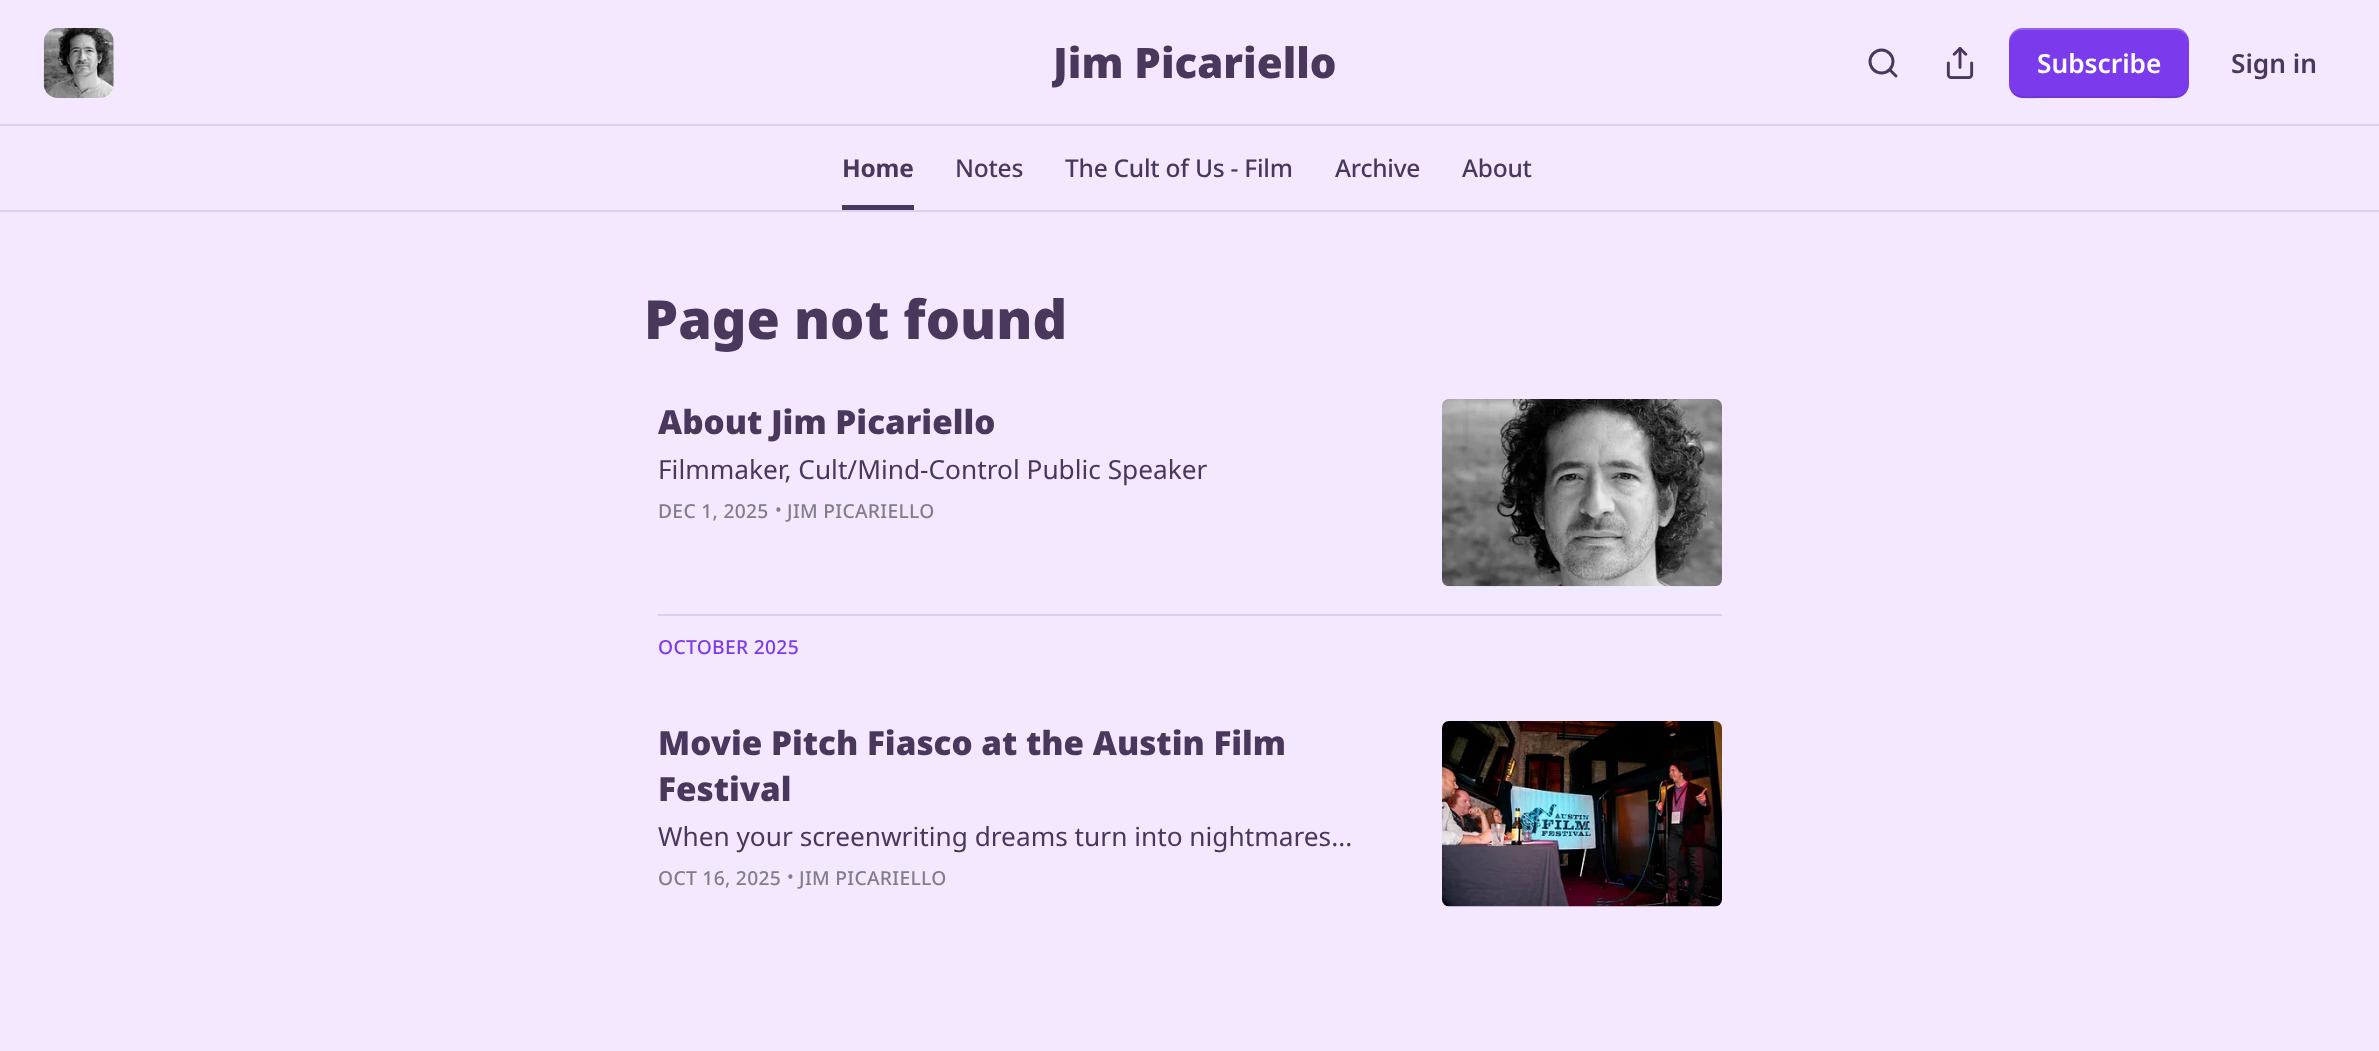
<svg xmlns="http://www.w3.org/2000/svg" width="2379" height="1051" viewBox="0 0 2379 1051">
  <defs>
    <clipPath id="clip1"><rect x="1052" y="35" width="285" height="56"/></clipPath>
  </defs>
  <rect width="100%" height="100%" fill="#f3e8ff"/>
  <rect x="44" y="28" width="70" height="70" rx="14" fill="#ffffff"/>
  <image x="43" y="28" width="71" height="70" href="img1.png"/>
  <g clip-path="url(#clip1)">
    <text x="1053" y="78" font-family="Noto Sans" font-size="42" font-weight="900" fill="#49375c">Jim Picariello</text>
  </g>
  <circle cx="1881.5" cy="61.5" r="11.5" fill="none" stroke="#49375c" stroke-width="2.9"/>
  <path d="M1896 76L1890 70" fill="none" stroke="#49375c" stroke-width="2.9" stroke-linecap="round" stroke-linejoin="round"/>
  <image x="1946" y="47" width="28" height="32" href="img2.png"/>
  <rect x="2009" y="28" width="180" height="70" rx="14" fill="#7c3aed"/>
  <path d="M2009 82C2009 104 2033 98 2048 98H2150C2165 98 2189 104 2189 82C2189 90 2183 96 2175 96H2023C2015 96 2009 90 2009 82Z" fill="#000000" fill-opacity="0.1"/>
  <path d="M2023 30H2175C2183 30 2189 36 2189 44C2189 22 2165 28 2150 28H2048C2033 28 2009 22 2009 44C2009 36 2015 30 2023 30Z" fill="#ffffff" fill-opacity="0.2"/>
  <text x="2037" y="73" font-family="Noto Sans" font-size="26.25" font-weight="600" fill="#ffffff">Subscribe</text>
  <text x="2231" y="73" font-family="Noto Sans" font-size="26.25" font-weight="600" fill="#49375c">Sign in</text>
  <rect x="0" y="124" width="2379" height="2" fill="#dbd1e6"/>
  <rect x="0" y="210" width="2379" height="2" fill="#dbd1e6"/>
  <rect x="842" y="205" width="72" height="5" fill="#49375c"/>
  <text x="842" y="177" font-family="Noto Sans" font-size="24.5" font-weight="bold" letter-spacing="-0.25" fill="#49375c">Home</text>
  <text x="955" y="177" font-family="Noto Sans" font-size="24.5" font-weight="500" letter-spacing="-0.25" fill="#49375c">Notes</text>
  <text x="1065" y="177" font-family="Noto Sans" font-size="24.5" font-weight="500" letter-spacing="-0.25" fill="#49375c">The Cult of Us - Film</text>
  <text x="1335" y="177" font-family="Noto Sans" font-size="24.5" font-weight="500" letter-spacing="-0.25" fill="#49375c">Archive</text>
  <text x="1462" y="177" font-family="Noto Sans" font-size="24.5" font-weight="500" letter-spacing="-0.25" fill="#49375c">About</text>
  <text x="644" y="339" font-family="Noto Sans" font-size="54" font-weight="900" fill="#49375c">Page not found</text>
  <text x="658" y="434" font-family="Noto Sans" font-size="33.25" font-weight="900" fill="#49375c">About Jim Picariello</text>
  <text x="658" y="479" font-family="Noto Sans" font-size="26.25" fill="#49375c">Filmmaker, Cult/Mind-Control Public Speaker</text>
  <text x="658" y="518" font-family="Noto Sans" font-size="19.25" font-weight="500" letter-spacing="0.3" fill="#827e87">DEC 1, 2025</text>
  <text x="775" y="516" font-family="Noto Sans" font-size="18" letter-spacing="0.3" fill="#827e87">•</text>
  <text x="787" y="518" font-family="Noto Sans" font-size="19.25" font-weight="500" letter-spacing="0.3" fill="#827e87">JIM PICARIELLO</text>
  <image x="1442" y="399" width="280" height="188" href="img3.png"/>
  <rect x="658" y="614" width="1064" height="2" fill="#dbd1e6"/>
  <text x="658" y="654" font-family="Noto Sans" font-size="19.25" font-weight="500" letter-spacing="0.3" fill="#7c3aed">OCTOBER 2025</text>
  <text x="658" y="755" font-family="Noto Sans" font-size="33.25" font-weight="900" fill="#49375c">Movie Pitch Fiasco at the Austin Film</text>
  <text x="658" y="801" font-family="Noto Sans" font-size="33.25" font-weight="900" fill="#49375c">Festival</text>
  <text x="658" y="846" font-family="Noto Sans" font-size="26.25" fill="#49375c">When your screenwriting dreams turn into nightmares...</text>
  <text x="658" y="885" font-family="Noto Sans" font-size="19.25" font-weight="500" letter-spacing="0.3" fill="#827e87">OCT 16, 2025</text>
  <text x="787" y="883" font-family="Noto Sans" font-size="18" letter-spacing="0.3" fill="#827e87">•</text>
  <text x="799" y="885" font-family="Noto Sans" font-size="19.25" font-weight="500" letter-spacing="0.3" fill="#827e87">JIM PICARIELLO</text>
  <image x="1442" y="721" width="280" height="186" href="img4.png"/>
</svg>
